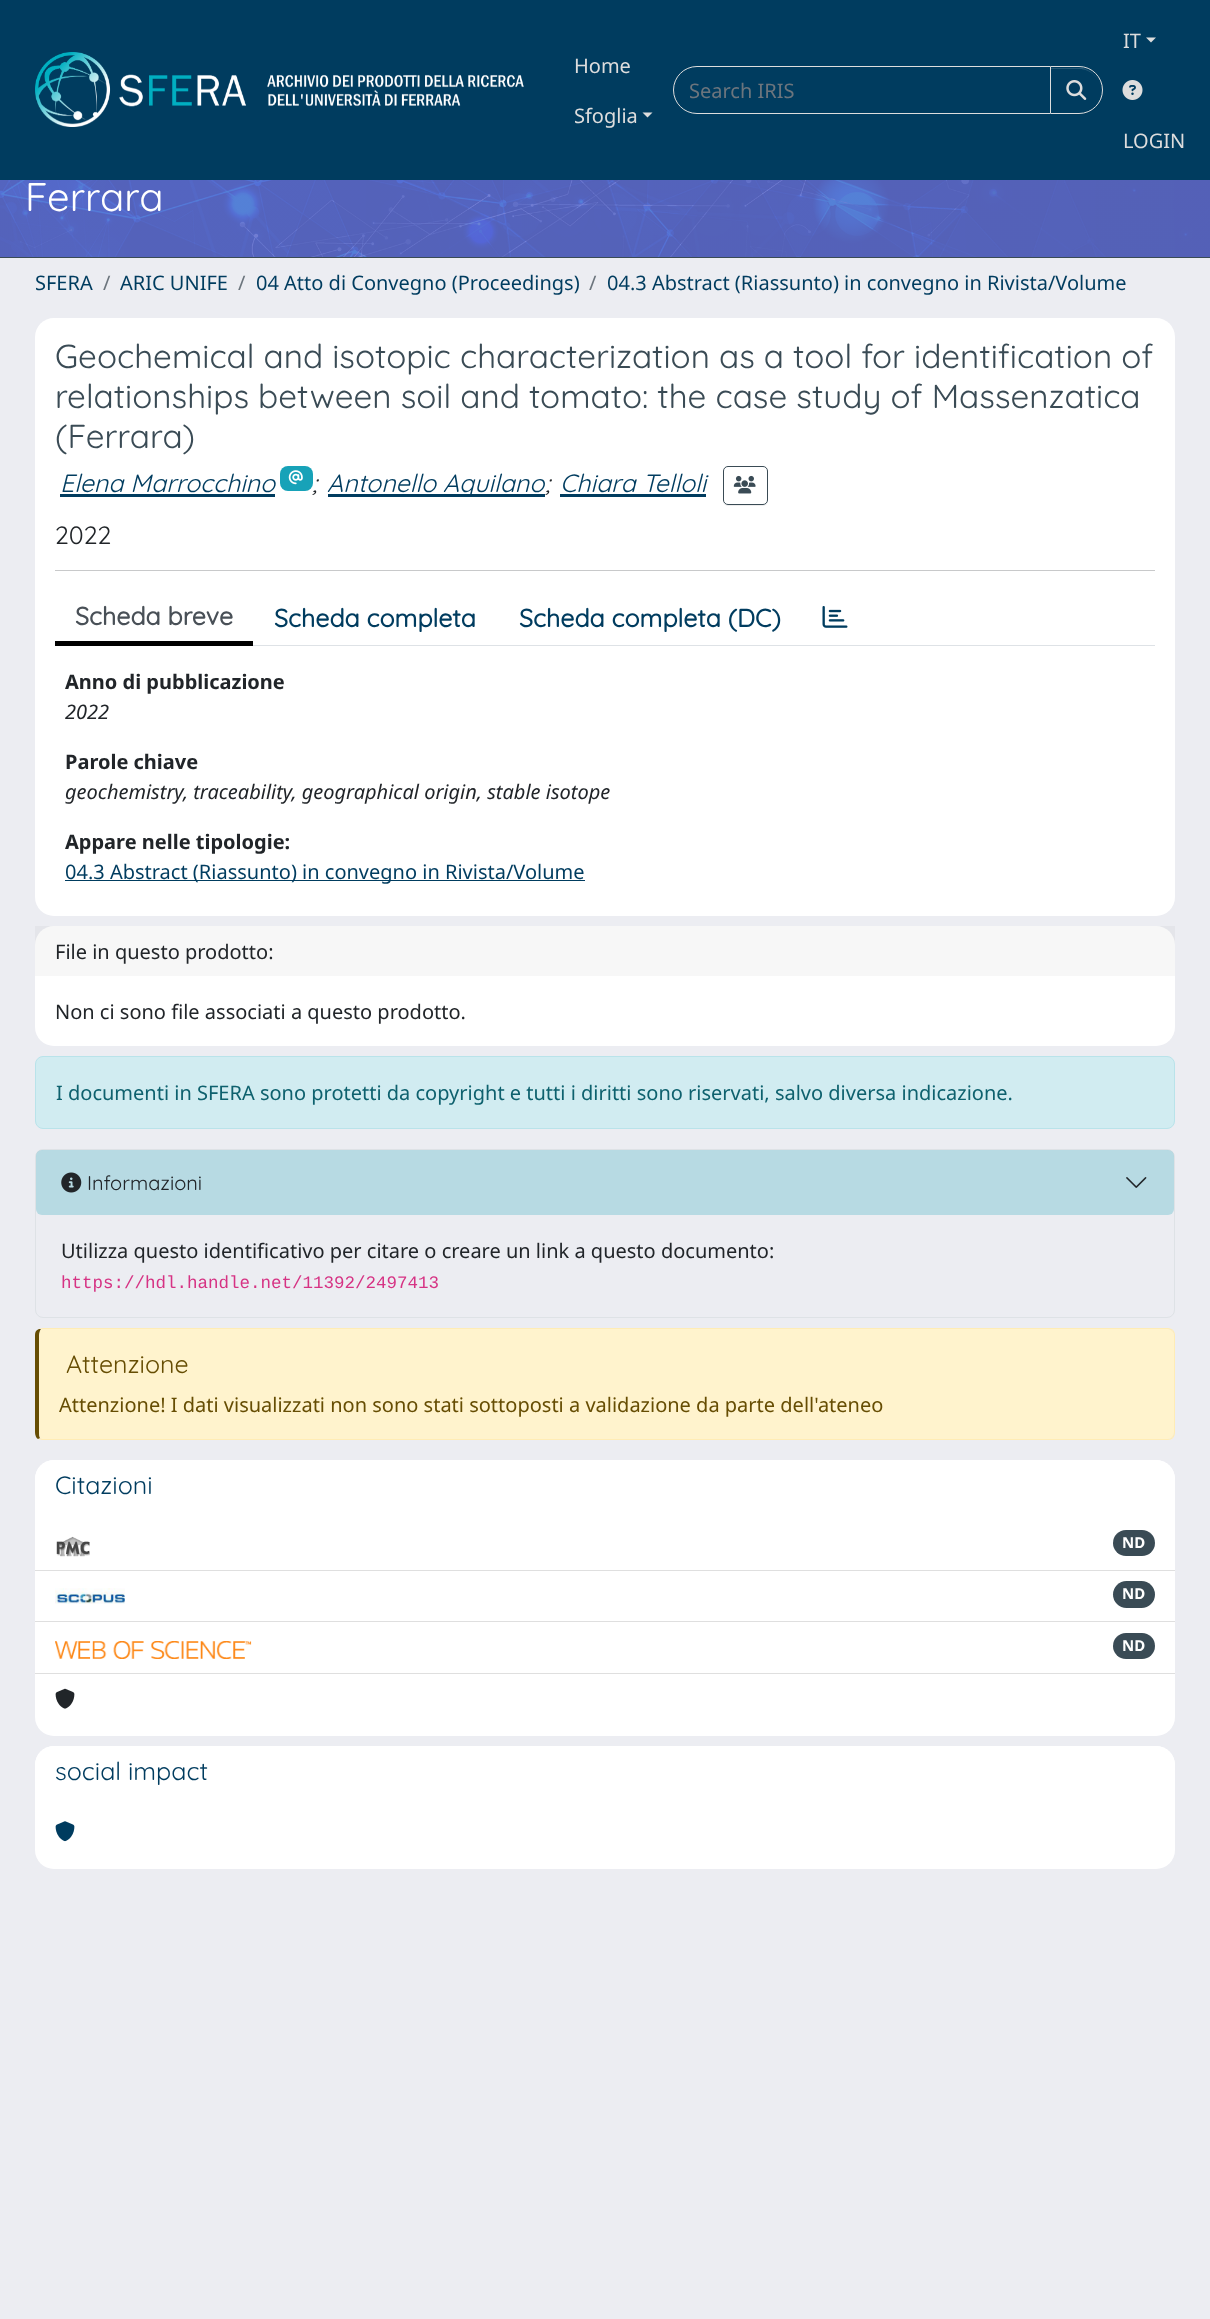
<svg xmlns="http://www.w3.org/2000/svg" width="1210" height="2319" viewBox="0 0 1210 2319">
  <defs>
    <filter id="blur1" x="-50%" y="-200%" width="200%" height="500%"><feGaussianBlur stdDeviation="0.5"/></filter>
    <clipPath id="clip1"><path d="M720 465H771V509H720ZM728 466H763C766 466 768 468 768 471V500C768 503 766 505 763 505H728C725 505 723 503 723 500V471C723 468 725 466 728 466Z" clip-rule="evenodd"/></clipPath>
  </defs>
  <rect width="100%" height="100%" fill="#ecedf2"/>
  <rect x="0" y="0" width="1210" height="180" fill="#003c5f"/>
  <image x="35" y="52" width="489" height="75" href="img1.png"/>
  <text x="574" y="73" font-family="Noto Sans" font-size="20" fill="#dddddd">Home</text>
  <text x="574" y="123" font-family="Noto Sans" font-size="20" fill="#dddddd">Sfoglia</text>
  <path d="M642.5 112.5H652.5L647.5 117.5Z" fill="#dddddd"/>
  <path d="M697 66.5H1050.5V113.5H697C684 113.5 673.5 103 673.5 90C673.5 77 684 66.5 697 66.5Z" fill="none" stroke="#dddddd"/>
  <text x="689" y="98" font-family="Noto Sans" font-size="20" fill="#6c757d">Search IRIS</text>
  <rect x="1050" y="68" width="53" height="47" rx="23.5" fill="#000000" fill-opacity="0.07" filter="url(#blur1)"/>
  <path d="M1050 66H1079C1092.5 66 1103 76.5 1103 90C1103 103.5 1092.5 114 1079 114H1050Z" fill="#003c5f"/>
  <path d="M1051 69H1079C1091 69 1101 79 1101 91C1101 80 1093 71 1083 68H1051Z" fill="#265977"/>
  <path d="M1050.5 66.5H1079C1092 66.5 1102.5 77 1102.5 90C1102.5 103 1092 113.5 1079 113.5H1050.5Z" fill="none" stroke="#dddddd"/>
  <image x="1066" y="80" width="21" height="20" href="img2.png"/>
  <text x="1123" y="48" font-family="Noto Sans" font-size="20" fill="#dddddd">IT</text>
  <path d="M1146 37.5H1156L1151 42.5Z" fill="#dddddd"/>
  <image x="1122" y="80" width="21" height="20" href="img3.png"/>
  <text x="1123" y="148" font-family="Noto Sans" font-size="20" fill="#dddddd">LOGIN</text>
  <rect x="0" y="180" width="1210" height="78" fill="#3a4b55"/>
  <image x="0" y="180" width="1210" height="77" href="img4.png"/>
  <text x="25" y="211" font-family="Quicksand" font-size="40" fill="#ffffff">Ferrara</text>
  <text x="35" y="290" font-family="Noto Sans" font-size="20" fill="#003c5f">SFERA</text>
  <text x="103" y="290" font-family="Noto Sans" font-size="20" fill="#6c757d">/</text>
  <text x="120" y="290" font-family="Noto Sans" font-size="20" fill="#003c5f">ARIC UNIFE</text>
  <text x="238" y="290" font-family="Noto Sans" font-size="20" fill="#6c757d">/</text>
  <text x="256" y="290" font-family="Noto Sans" font-size="20" fill="#003c5f">04 Atto di Convegno (Proceedings)</text>
  <text x="589" y="290" font-family="Noto Sans" font-size="20" fill="#6c757d">/</text>
  <text x="607" y="290" font-family="Noto Sans" font-size="20" fill="#003c5f">04.3 Abstract (Riassunto) in convegno in Rivista/Volume</text>
  <rect x="35" y="318" width="1140" height="598" rx="19" fill="#ffffff"/>
  <text x="55" y="368" font-family="Quicksand" font-size="33.25" fill="#3a4b55">Geochemical and isotopic characterization as a tool for identification of</text>
  <text x="55" y="408" font-family="Quicksand" font-size="33.25" fill="#3a4b55">relationships between soil and tomato: the case study of Massenzatica</text>
  <text x="55" y="448" font-family="Quicksand" font-size="33.25" fill="#3a4b55">(Ferrara)</text>
  <text x="60" y="492" font-family="Quicksand" font-size="25" font-style="italic" fill="#003c5f">Elena Marrocchino</text>
  <rect x="60" y="494" width="215" height="3" fill="#003c5f"/>
  <text x="312" y="492" font-family="Quicksand" font-size="25" font-style="italic" fill="#212529">;</text>
  <rect x="280" y="466" width="33" height="25" rx="8" fill="#17a2b8"/>
  <image x="288" y="470" width="15" height="15" href="img5.png"/>
  <rect x="328" y="494" width="217" height="3" fill="#003c5f"/>
  <text x="327" y="492" font-family="Quicksand" font-size="25" font-style="italic" fill="#003c5f">Antonello Aquilano</text>
  <text x="545" y="492" font-family="Quicksand" font-size="25" font-style="italic" fill="#212529">;</text>
  <text x="560" y="492" font-family="Quicksand" font-size="25" font-style="italic" fill="#003c5f">Chiara Telloli</text>
  <rect x="560" y="494" width="146" height="3" fill="#003c5f"/>
  <g clip-path="url(#clip1)">
    <rect x="723" y="468" width="45" height="38" rx="5" fill="#000000" fill-opacity="0.07" filter="url(#blur1)"/>
  </g>
  <rect x="723.5" y="466.5" width="44" height="38" rx="4.5" fill="none" stroke="#3a4b55"/>
  <image x="733" y="475" width="23" height="19" href="img6.png"/>
  <text x="55" y="544" font-family="Quicksand" font-size="25" fill="#212529">2022</text>
  <rect x="55" y="570" width="1100" height="1" fill="#c8c9ca"/>
  <rect x="253" y="645" width="902" height="1" fill="#dee2e6"/>
  <rect x="55" y="641" width="198" height="5" fill="#000000"/>
  <text x="75" y="625" font-family="Quicksand" font-size="25" font-weight="bold" fill="#495057">Scheda breve</text>
  <text x="274" y="627" font-family="Quicksand" font-size="25" font-weight="bold" fill="#003c5f">Scheda completa</text>
  <text x="519" y="627" font-family="Quicksand" font-size="25" font-weight="bold" fill="#003c5f">Scheda completa (DC)</text>
  <image x="822" y="606" width="26" height="22" href="img7.png"/>
  <text x="65" y="689" font-family="Noto Sans" font-size="20" font-weight="bold" fill="#212529">Anno di pubblicazione</text>
  <text x="65" y="719" font-family="Noto Sans" font-size="20" font-style="italic" fill="#212529">2022</text>
  <text x="65" y="769" font-family="Noto Sans" font-size="20" font-weight="bold" fill="#212529">Parole chiave</text>
  <text x="65" y="799" font-family="Noto Sans" font-size="20" font-style="italic" fill="#212529">geochemistry, traceability, geographical origin, stable isotope</text>
  <text x="65" y="849" font-family="Noto Sans" font-size="20" font-weight="bold" fill="#212529">Appare nelle tipologie:</text>
  <rect x="65" y="880" width="520" height="1" fill="#003c5f"/>
  <text x="65" y="879" font-family="Noto Sans" font-size="20" fill="#003c5f">04.3 Abstract (Riassunto) in convegno in Rivista/Volume</text>
  <rect x="35" y="926" width="1140" height="120" rx="19" fill="#ffffff"/>
  <rect x="35" y="926" width="1140" height="50" fill="#000000" fill-opacity="0.03"/>
  <text x="55" y="959" font-family="Noto Sans" font-size="20" fill="#212529">File in questo prodotto:</text>
  <text x="55" y="1019" font-family="Noto Sans" font-size="20" fill="#212529">Non ci sono file associati a questo prodotto.</text>
  <rect x="35.5" y="1056.5" width="1139" height="72" rx="7.5" fill="#d1ecf1" stroke="#b9e3ea"/>
  <text x="56" y="1100" font-family="Noto Sans" font-size="20" fill="#0e616e">I documenti in SFERA sono protetti da copyright e tutti i diritti sono riservati, salvo diversa indicazione.</text>
  <rect x="35.5" y="1149.5" width="1139" height="168" rx="7.5" fill="none" stroke="#dee2e6"/>
  <rect x="36" y="1150" width="1138" height="65" rx="6" fill="#17a2b8" fill-opacity="0.25"/>
  <image x="61" y="1172" width="21" height="21" href="img8.png"/>
  <text x="87" y="1190" font-family="Quicksand" font-size="20" fill="#212529">Informazioni</text>
  <image x="1126" y="1177" width="21" height="11" href="img9.png"/>
  <text x="61" y="1258" font-family="Noto Sans" font-size="20" fill="#212529">Utilizza questo identificativo per citare o creare un link a questo documento:</text>
  <text x="61" y="1288" font-family="Liberation Mono" font-size="17.5" fill="#d63384">https://hdl.handle.net/11392/2497413</text>
  <path d="M42 1329H1168C1171 1329 1174 1332 1174 1335V1432C1174 1436 1171 1439 1168 1439H42C40 1439 39 1436 39 1432V1335C39 1332 40 1329 42 1329Z" fill="#fff3cd"/>
  <path d="M42 1328L39 1329H41H42H1168C1169 1329 1171 1330 1172 1331L1173 1330C1172 1329 1170 1328 1168 1328Z" fill="#ffecb5"/>
  <path d="M1173 1330C1174 1331 1175 1333 1175 1335V1432C1175 1435 1174 1437 1173 1438L1172 1437C1173 1436 1174 1434 1174 1432V1335C1174 1333 1173 1332 1172 1331Z" fill="#ffecb5"/>
  <path d="M42 1440H1168C1170 1440 1172 1439 1173 1438L1172 1437C1171 1438 1170 1439 1168 1439H42L40 1438L38 1439Z" fill="#ffecb5"/>
  <path d="M35 1335V1432C35 1435 36 1438 38 1439L40 1438C39 1437 39 1435 39 1432V1335C39 1333 40 1330 41 1329H39C36 1330 35 1332 35 1335Z" fill="#664d03"/>
  <text x="66" y="1373" font-family="Quicksand" font-size="25" fill="#664d03">Attenzione</text>
  <text x="59" y="1412" font-family="Noto Sans" font-size="20" fill="#664d03">Attenzione! I dati visualizzati non sono stati sottoposti a validazione da parte dell'ateneo</text>
  <rect x="35" y="1460" width="1140" height="276" rx="19" fill="#ffffff"/>
  <path d="M54 1460H1156C1166.5 1460 1175 1468.5 1175 1479V1520H35V1479C35 1468.5 43.5 1460 54 1460Z" fill="#ffffff"/>
  <text x="55" y="1494" font-family="Quicksand" font-size="25" fill="#003c5f">Citazioni</text>
  <rect x="35" y="1570" width="1140" height="1" fill="#dfdfdf"/>
  <image x="56" y="1536" width="34" height="21" href="img10.png"/>
  <rect x="1113" y="1530" width="42" height="26" rx="13" fill="#3a4b55"/>
  <text x="1122" y="1548" font-family="Noto Sans" font-size="15" font-weight="bold" fill="#ffffff">ND</text>
  <rect x="35" y="1621" width="1140" height="1" fill="#dfdfdf"/>
  <image x="55" y="1588" width="70" height="16" href="img11.png"/>
  <rect x="1113" y="1581" width="42" height="27" rx="13.5" fill="#3a4b55"/>
  <text x="1122" y="1599" font-family="Noto Sans" font-size="15" font-weight="bold" fill="#ffffff">ND</text>
  <rect x="35" y="1673" width="1140" height="1" fill="#dfdfdf"/>
  <image x="55" y="1641" width="197" height="18" href="img12.png"/>
  <rect x="1113" y="1633" width="42" height="26" rx="13" fill="#3a4b55"/>
  <text x="1122" y="1651" font-family="Noto Sans" font-size="15" font-weight="bold" fill="#ffffff">ND</text>
  <image x="55" y="1688" width="20" height="21" href="img13.png"/>
  <rect x="35" y="1746" width="1140" height="123" rx="19" fill="#ffffff"/>
  <path d="M54 1746H1156C1166.5 1746 1175 1754.5 1175 1765V1806H35V1765C35 1754.5 43.5 1746 54 1746Z" fill="#ffffff"/>
  <text x="55" y="1780" font-family="Quicksand" font-size="25" fill="#003c5f">social impact</text>
  <image x="55" y="1821" width="20" height="21" href="img14.png"/>
</svg>
